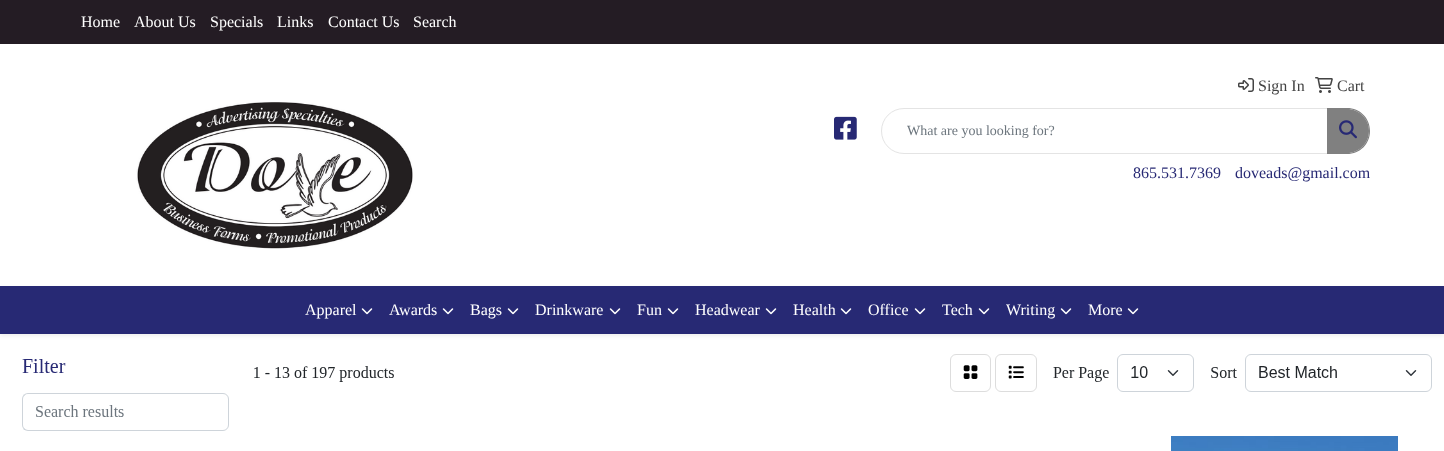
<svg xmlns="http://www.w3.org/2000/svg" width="1444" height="451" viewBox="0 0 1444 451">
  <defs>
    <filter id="blur1" x="-50%" y="-200%" width="200%" height="500%"><feGaussianBlur stdDeviation="2"/></filter>
  </defs>
  <rect width="100%" height="100%" fill="#ffffff"/>
  <rect x="0" y="0" width="1444" height="44" fill="#241c24"/>
  <text x="81" y="27" font-family="Liberation Serif" font-size="16" fill="#ffffff">Home</text>
  <text x="134" y="27" font-family="Liberation Serif" font-size="16" fill="#ffffff">About Us</text>
  <text x="210" y="27" font-family="Liberation Serif" font-size="16" fill="#ffffff">Specials</text>
  <text x="277" y="27" font-family="Liberation Serif" font-size="16" fill="#ffffff">Links</text>
  <text x="328" y="27" font-family="Liberation Serif" font-size="16" fill="#ffffff">Contact Us</text>
  <text x="413" y="27" font-family="Liberation Serif" font-size="16" fill="#ffffff">Search</text>
  <image x="136" y="102" width="277" height="147" href="img1.png"/>
  <image x="1238" y="78" width="16" height="14" href="img2.png"/>
  <text x="1258" y="91" font-family="Liberation Serif" font-size="16" fill="#444444">Sign In</text>
  <image x="1315" y="77" width="18" height="16" href="img3.png"/>
  <text x="1337" y="91" font-family="Liberation Serif" font-size="16" fill="#444444">Cart</text>
  <image x="834" y="116" width="23" height="24" href="img4.png"/>
  <path d="M904 108.5H1327.5V153.5H904C891.5 153.5 881.5 143.5 881.5 131C881.5 118.5 891.5 108.5 904 108.5Z" fill="none" stroke="#e4e4e4"/>
  <text x="907" y="135" font-family="Liberation Serif" font-size="14" fill="#6c757d">What are you looking for?</text>
  <path d="M1327 109H1347C1359 109 1369 119 1369 131C1369 143 1359 153 1347 153H1327Z" fill="#808080"/>
  <path d="M1327 108H1347C1360 108 1370 118 1370 131C1370 144 1360 154 1347 154H1327ZM1327 109H1347C1359 109 1369 119 1369 131C1369 143 1359 153 1347 153H1327Z" fill="#808080" fill-rule="evenodd"/>
  <image x="1339" y="120" width="18" height="19" href="img5.png"/>
  <text x="1133" y="178" font-family="Liberation Serif" font-size="16" fill="#272974">865.531.7369</text>
  <text x="1235" y="178" font-family="Liberation Serif" font-size="16" fill="#272974">doveads@gmail.com</text>
  <rect x="0" y="288" width="1444" height="48" fill="#000000" fill-opacity="0.07" filter="url(#blur1)"/>
  <rect x="0" y="286" width="1444" height="48" fill="#272974"/>
  <text x="305" y="315" font-family="Liberation Serif" font-size="16" fill="#ffffff">Apparel</text>
  <image x="361" y="308" width="12" height="7" href="img6.png"/>
  <text x="389" y="315" font-family="Liberation Serif" font-size="16" fill="#ffffff">Awards</text>
  <image x="442" y="308" width="12" height="7" href="img6.png"/>
  <text x="470" y="315" font-family="Liberation Serif" font-size="16" fill="#ffffff">Bags</text>
  <image x="507" y="308" width="12" height="7" href="img6.png"/>
  <text x="535" y="315" font-family="Liberation Serif" font-size="16" fill="#ffffff">Drinkware</text>
  <image x="609" y="308" width="12" height="7" href="img6.png"/>
  <text x="637" y="315" font-family="Liberation Serif" font-size="16" fill="#ffffff">Fun</text>
  <image x="667" y="308" width="12" height="7" href="img6.png"/>
  <text x="695" y="315" font-family="Liberation Serif" font-size="16" fill="#ffffff">Headwear</text>
  <image x="765" y="308" width="12" height="7" href="img6.png"/>
  <text x="793" y="315" font-family="Liberation Serif" font-size="16" fill="#ffffff">Health</text>
  <image x="840" y="308" width="12" height="7" href="img6.png"/>
  <text x="868" y="315" font-family="Liberation Serif" font-size="16" fill="#ffffff">Office</text>
  <image x="914" y="308" width="12" height="7" href="img6.png"/>
  <text x="942" y="315" font-family="Liberation Serif" font-size="16" fill="#ffffff">Tech</text>
  <image x="978" y="308" width="12" height="7" href="img6.png"/>
  <text x="1006" y="315" font-family="Liberation Serif" font-size="16" fill="#ffffff">Writing</text>
  <image x="1060" y="308" width="12" height="7" href="img6.png"/>
  <text x="1088" y="315" font-family="Liberation Serif" font-size="16" fill="#ffffff">More</text>
  <image x="1127" y="308" width="12" height="7" href="img6.png"/>
  <image x="22" y="354" width="1410" height="97" href="img7.png"/>
</svg>
